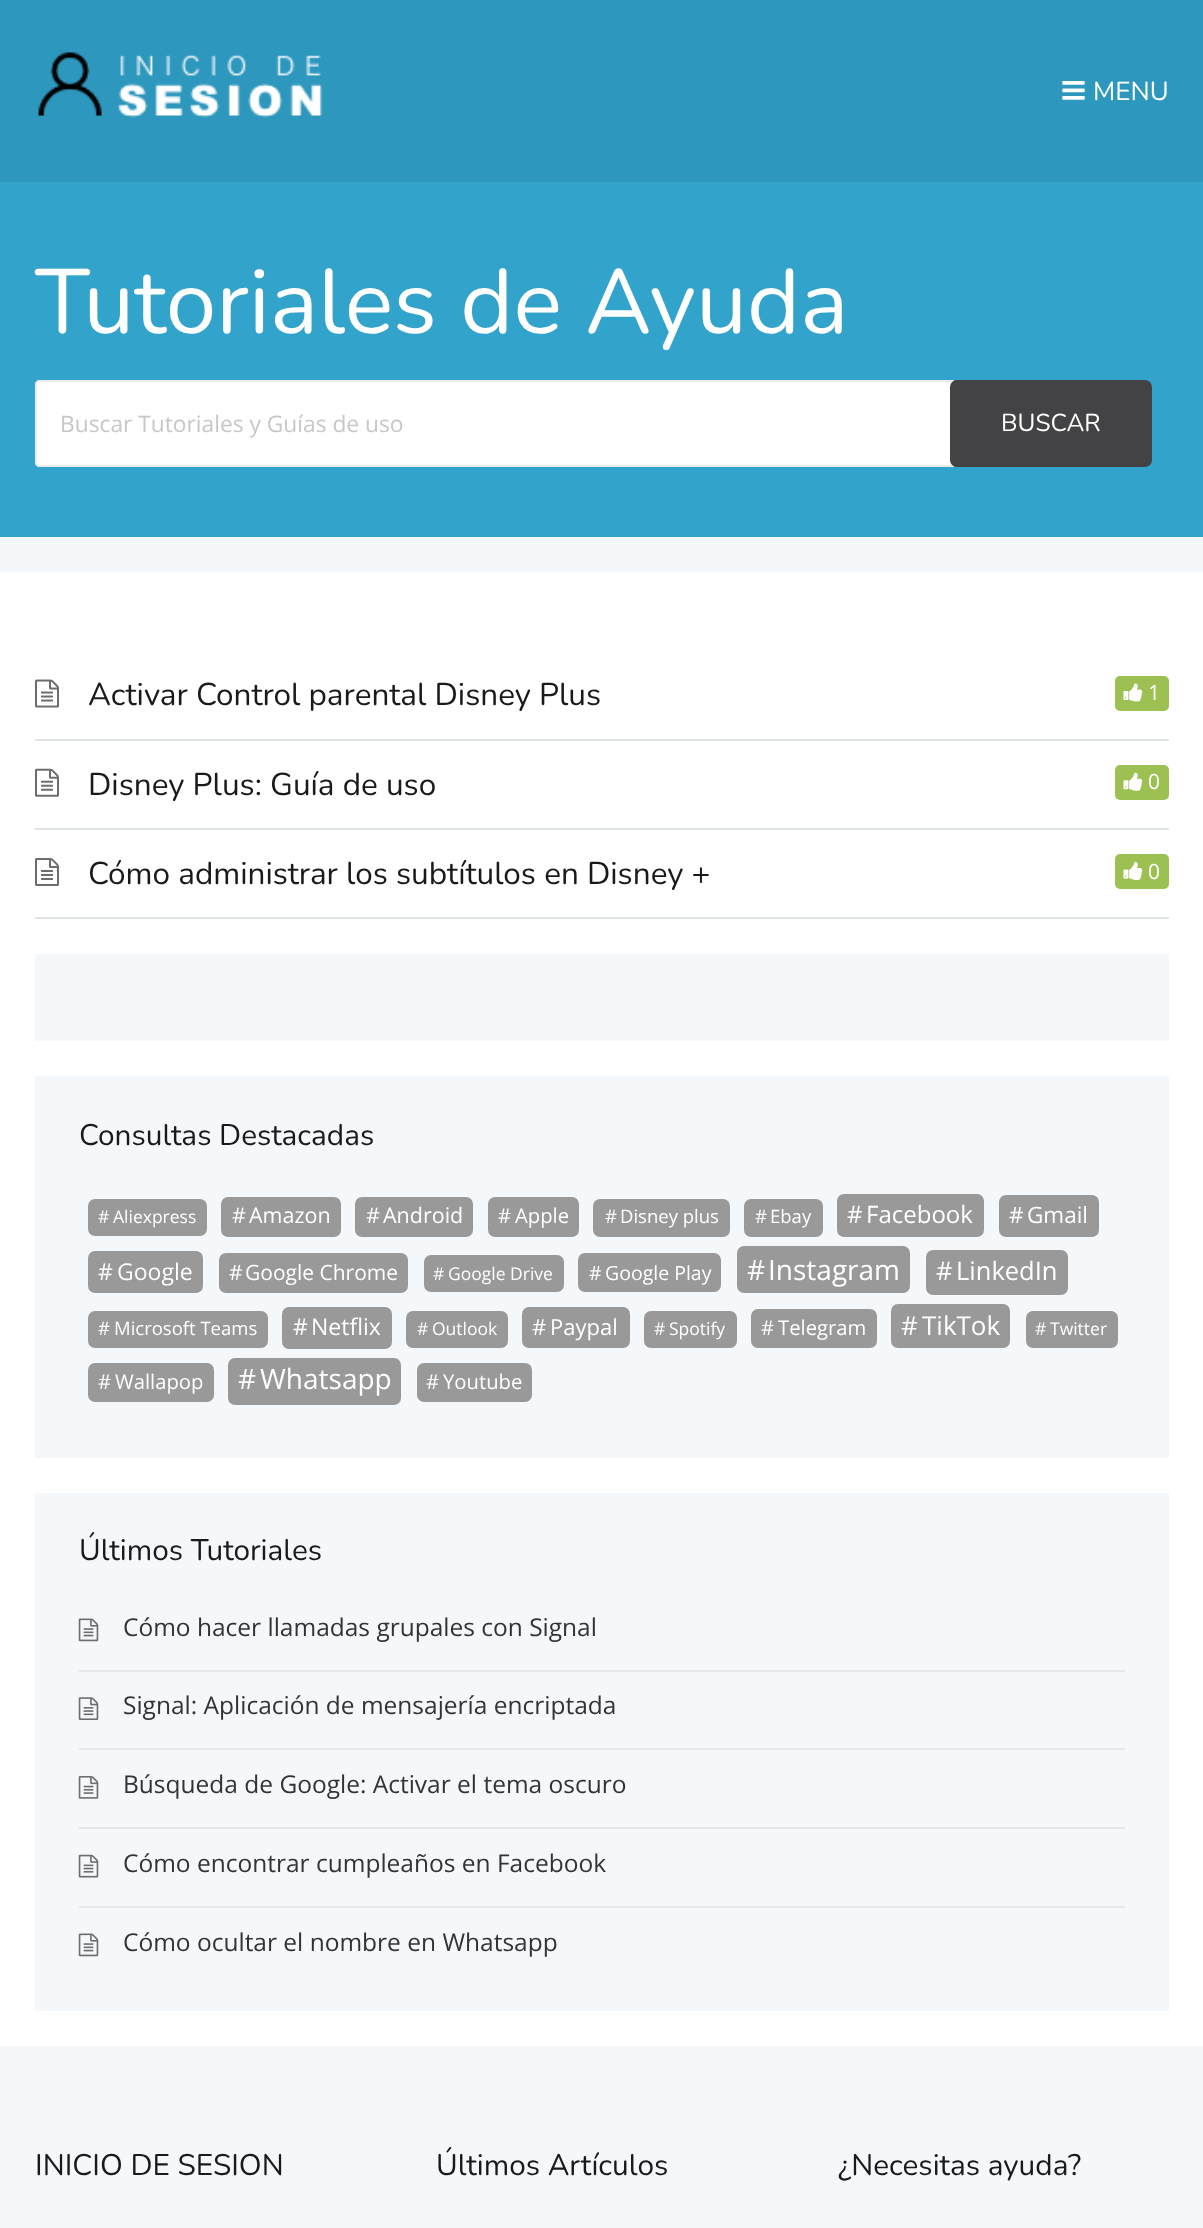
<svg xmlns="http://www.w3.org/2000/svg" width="1203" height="2228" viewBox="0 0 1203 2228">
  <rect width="100%" height="100%" fill="#ffffff"/>
  <rect x="0" y="0" width="1203" height="182" fill="#2e97bd"/>
  <image x="38" y="52" width="285" height="66" href="img1.png"/>
  <image x="1062" y="81" width="23" height="19" href="img2.png"/>
  <text x="1093" y="100" font-family="Nunito" font-size="26" font-weight="200" fill="#ffffff">MENU</text>
  <rect x="0" y="182" width="1203" height="355" fill="#32a3cb"/>
  <text x="35" y="333" font-family="Nunito" font-size="91" font-weight="200" fill="#ffffff">Tutoriales de Ayuda</text>
  <path d="M39 381H953V466H39C37.5 466 36 464.5 36 463V384C36 382.5 37.5 381 39 381Z" fill="#ffffff" stroke="#ebebeb" stroke-width="2"/>
  <text x="60" y="432" font-family="Open Sans" font-size="22.75" fill="#c7c7c7">Buscar Tutoriales y Guías de uso</text>
  <rect x="950" y="380" width="202" height="87" rx="7" fill="#434345"/>
  <text x="1001" y="431" font-family="Nunito" font-size="24.5" font-weight="200" fill="#ffffff">BUSCAR</text>
  <rect x="0" y="537" width="1203" height="35" fill="#f5f8fa"/>
  <rect x="35" y="739" width="1134" height="2" fill="#dfe4e6"/>
  <image x="35" y="679" width="24" height="29" href="img3.png"/>
  <text x="88" y="705" font-family="Nunito" font-size="31.5" font-weight="200" fill="#1a1a1a">Activar Control parental Disney Plus</text>
  <rect x="1115" y="676" width="54" height="35" rx="5" fill="#9cc051"/>
  <image x="1123" y="683" width="20" height="19" href="img4.png"/>
  <text x="1148" y="700" font-family="Open Sans" font-size="21" fill="#ffffff">1</text>
  <rect x="35" y="828" width="1134" height="2" fill="#dfe4e6"/>
  <image x="35" y="768" width="24" height="29" href="img5.png"/>
  <text x="88" y="795" font-family="Nunito" font-size="31.5" font-weight="200" fill="#1a1a1a">Disney Plus: Guía de uso</text>
  <rect x="1115" y="765" width="54" height="35" rx="5" fill="#9cc051"/>
  <image x="1123" y="772" width="20" height="19" href="img6.png"/>
  <text x="1148" y="789" font-family="Open Sans" font-size="21" fill="#ffffff">0</text>
  <rect x="35" y="917" width="1134" height="2" fill="#dfe4e6"/>
  <image x="35" y="858" width="24" height="28" href="img7.png"/>
  <text x="88" y="884" font-family="Nunito" font-size="31.5" font-weight="200" fill="#1a1a1a">Cómo administrar los subtítulos en Disney +</text>
  <rect x="1115" y="854" width="54" height="35" rx="5" fill="#9cc051"/>
  <image x="1123" y="862" width="20" height="18" href="img8.png"/>
  <text x="1148" y="879" font-family="Open Sans" font-size="21" fill="#ffffff">0</text>
  <rect x="35" y="954" width="1134" height="87" fill="#f5f8fa"/>
  <rect x="35" y="1076" width="1134" height="382" fill="#f5f8fa"/>
  <text x="79" y="1145" font-family="Nunito" font-size="29.75" font-weight="200" fill="#1a1a1a">Consultas Destacadas</text>
  <rect x="88" y="1199" width="119" height="37" rx="7" fill="#999999"/>
  <text x="98" y="1223" font-family="Open Sans" font-size="17.5" fill="#ffffff">#</text>
  <text x="113" y="1223" font-family="Open Sans" font-size="17.5" fill="#ffffff">Aliexpress</text>
  <rect x="221" y="1197" width="120" height="40" rx="7" fill="#999999"/>
  <text x="232" y="1223" font-family="Open Sans" font-size="21.5" fill="#ffffff">#</text>
  <text x="249" y="1223" font-family="Open Sans" font-size="21.5" fill="#ffffff">Amazon</text>
  <rect x="355" y="1197" width="118" height="40" rx="7" fill="#999999"/>
  <text x="366" y="1223" font-family="Open Sans" font-size="21.5" fill="#ffffff">#</text>
  <text x="383" y="1223" font-family="Open Sans" font-size="21.5" fill="#ffffff">Android</text>
  <rect x="488" y="1197" width="91" height="40" rx="7" fill="#999999"/>
  <text x="498" y="1223" font-family="Open Sans" font-size="20.25" fill="#ffffff">#</text>
  <text x="515" y="1223" font-family="Open Sans" font-size="20.25" fill="#ffffff">Apple</text>
  <rect x="593" y="1199" width="137" height="38" rx="7" fill="#999999"/>
  <text x="605" y="1223" font-family="Open Sans" font-size="18.5" fill="#ffffff">#</text>
  <text x="620" y="1223" font-family="Open Sans" font-size="18.5" fill="#ffffff">Disney plus</text>
  <rect x="744" y="1199" width="79" height="38" rx="7" fill="#999999"/>
  <text x="755" y="1223" font-family="Open Sans" font-size="18.5" fill="#ffffff">#</text>
  <text x="770" y="1223" font-family="Open Sans" font-size="18.5" fill="#ffffff">Ebay</text>
  <rect x="837" y="1194" width="147" height="43" rx="7" fill="#999999"/>
  <text x="847" y="1223" font-family="Open Sans" font-size="24" fill="#ffffff">#</text>
  <text x="866" y="1223" font-family="Open Sans" font-size="24" fill="#ffffff">Facebook</text>
  <rect x="999" y="1195" width="100" height="42" rx="7" fill="#999999"/>
  <text x="1009" y="1223" font-family="Open Sans" font-size="22.5" fill="#ffffff">#</text>
  <text x="1027" y="1223" font-family="Open Sans" font-size="22.5" fill="#ffffff">Gmail</text>
  <rect x="88" y="1251" width="115" height="42" rx="7" fill="#999999"/>
  <text x="98" y="1280" font-family="Open Sans" font-size="23" fill="#ffffff">#</text>
  <text x="117" y="1280" font-family="Open Sans" font-size="23" fill="#ffffff">Google</text>
  <rect x="219" y="1253" width="189" height="40" rx="7" fill="#999999"/>
  <text x="229" y="1280" font-family="Open Sans" font-size="21" fill="#ffffff">#</text>
  <text x="245" y="1280" font-family="Open Sans" font-size="21" fill="#ffffff">Google Chrome</text>
  <rect x="424" y="1255" width="140" height="37" rx="7" fill="#999999"/>
  <text x="433" y="1280" font-family="Open Sans" font-size="17.5" fill="#ffffff">#</text>
  <text x="448" y="1280" font-family="Open Sans" font-size="17.5" fill="#ffffff">Google Drive</text>
  <rect x="578" y="1253" width="143" height="39" rx="7" fill="#999999"/>
  <text x="589" y="1280" font-family="Open Sans" font-size="19.5" fill="#ffffff">#</text>
  <text x="605" y="1280" font-family="Open Sans" font-size="19.5" fill="#ffffff">Google Play</text>
  <rect x="737" y="1246" width="173" height="47" rx="7" fill="#999999"/>
  <text x="747" y="1280" font-family="Open Sans" font-size="28" fill="#ffffff">#</text>
  <text x="768" y="1280" font-family="Open Sans" font-size="28" fill="#ffffff">Instagram</text>
  <rect x="926" y="1250" width="142" height="45" rx="7" fill="#999999"/>
  <text x="936" y="1280" font-family="Open Sans" font-size="25.5" fill="#ffffff">#</text>
  <text x="956" y="1280" font-family="Open Sans" font-size="25.5" fill="#ffffff">LinkedIn</text>
  <rect x="88" y="1311" width="180" height="37" rx="7" fill="#999999"/>
  <text x="98" y="1335" font-family="Open Sans" font-size="18.5" fill="#ffffff">#</text>
  <text x="114" y="1335" font-family="Open Sans" font-size="18.5" fill="#ffffff">Microsoft Teams</text>
  <rect x="282" y="1307" width="110" height="42" rx="7" fill="#999999"/>
  <text x="293" y="1335" font-family="Open Sans" font-size="23" fill="#ffffff">#</text>
  <text x="311" y="1335" font-family="Open Sans" font-size="23" fill="#ffffff">Netflix</text>
  <rect x="406" y="1311" width="102" height="37" rx="7" fill="#999999"/>
  <text x="417" y="1335" font-family="Open Sans" font-size="17.5" fill="#ffffff">#</text>
  <text x="432" y="1335" font-family="Open Sans" font-size="17.5" fill="#ffffff">Outlook</text>
  <rect x="522" y="1307" width="108" height="41" rx="7" fill="#999999"/>
  <text x="532" y="1335" font-family="Open Sans" font-size="22" fill="#ffffff">#</text>
  <text x="550" y="1335" font-family="Open Sans" font-size="22" fill="#ffffff">Paypal</text>
  <rect x="644" y="1311" width="93" height="37" rx="7" fill="#999999"/>
  <text x="654" y="1335" font-family="Open Sans" font-size="17.5" fill="#ffffff">#</text>
  <text x="669" y="1335" font-family="Open Sans" font-size="17.5" fill="#ffffff">Spotify</text>
  <rect x="751" y="1309" width="126" height="39" rx="7" fill="#999999"/>
  <text x="761" y="1335" font-family="Open Sans" font-size="20.25" fill="#ffffff">#</text>
  <text x="778" y="1335" font-family="Open Sans" font-size="20.25" fill="#ffffff">Telegram</text>
  <rect x="891" y="1304" width="119" height="44" rx="7" fill="#999999"/>
  <text x="901" y="1335" font-family="Open Sans" font-size="26" fill="#ffffff">#</text>
  <text x="922" y="1335" font-family="Open Sans" font-size="26" fill="#ffffff">TikTok</text>
  <rect x="1026" y="1311" width="92" height="37" rx="7" fill="#999999"/>
  <text x="1035" y="1335" font-family="Open Sans" font-size="17.5" fill="#ffffff">#</text>
  <text x="1050" y="1335" font-family="Open Sans" font-size="17.5" fill="#ffffff">Twitter</text>
  <rect x="88" y="1363" width="126" height="39" rx="7" fill="#999999"/>
  <text x="98" y="1389" font-family="Open Sans" font-size="20.25" fill="#ffffff">#</text>
  <text x="115" y="1389" font-family="Open Sans" font-size="20.25" fill="#ffffff">Wallapop</text>
  <rect x="228" y="1358" width="173" height="47" rx="7" fill="#999999"/>
  <text x="238" y="1389" font-family="Open Sans" font-size="28" fill="#ffffff">#</text>
  <text x="260" y="1389" font-family="Open Sans" font-size="28" fill="#ffffff">Whatsapp</text>
  <rect x="417" y="1363" width="115" height="39" rx="7" fill="#999999"/>
  <text x="426" y="1389" font-family="Open Sans" font-size="20.25" fill="#ffffff">#</text>
  <text x="443" y="1389" font-family="Open Sans" font-size="20.25" fill="#ffffff">Youtube</text>
  <rect x="35" y="1493" width="1134" height="518" fill="#f5f8fa"/>
  <text x="79" y="1560" font-family="Nunito" font-size="29.75" font-weight="200" fill="#1a1a1a">Últimos Tutoriales</text>
  <rect x="79" y="1670" width="1046" height="2" fill="#e5e7e9"/>
  <image x="78" y="1618" width="21" height="24" href="img9.png"/>
  <text x="123" y="1636" font-family="Open Sans" font-size="24.5" fill="#333333">Cómo hacer llamadas grupales con Signal</text>
  <rect x="79" y="1748" width="1046" height="2" fill="#e5e7e9"/>
  <image x="78" y="1697" width="21" height="23" href="img10.png"/>
  <text x="123" y="1714" font-family="Open Sans" font-size="24.5" fill="#333333">Signal: Aplicación de mensajería encriptada</text>
  <rect x="79" y="1827" width="1046" height="2" fill="#e5e7e9"/>
  <image x="78" y="1776" width="21" height="23" href="img11.png"/>
  <text x="123" y="1793" font-family="Open Sans" font-size="24.5" fill="#333333">Búsqueda de Google: Activar el tema oscuro</text>
  <rect x="79" y="1906" width="1046" height="2" fill="#e5e7e9"/>
  <image x="78" y="1854" width="21" height="24" href="img12.png"/>
  <text x="123" y="1872" font-family="Open Sans" font-size="24.5" fill="#333333">Cómo encontrar cumpleaños en Facebook</text>
  <image x="78" y="1933" width="21" height="24" href="img9.png"/>
  <text x="123" y="1951" font-family="Open Sans" font-size="24.5" fill="#333333">Cómo ocultar el nombre en Whatsapp</text>
  <rect x="0" y="2046" width="1203" height="182" fill="#f5f8fa"/>
  <text x="35" y="2175" font-family="Nunito" font-size="29.75" font-weight="200" fill="#1a1a1a">INICIO DE SESION</text>
  <text x="436" y="2175" font-family="Nunito" font-size="29.75" font-weight="200" fill="#1a1a1a">Últimos Artículos</text>
  <text x="838" y="2175" font-family="Nunito" font-size="29.75" font-weight="200" fill="#1a1a1a">¿Necesitas ayuda?</text>
</svg>
